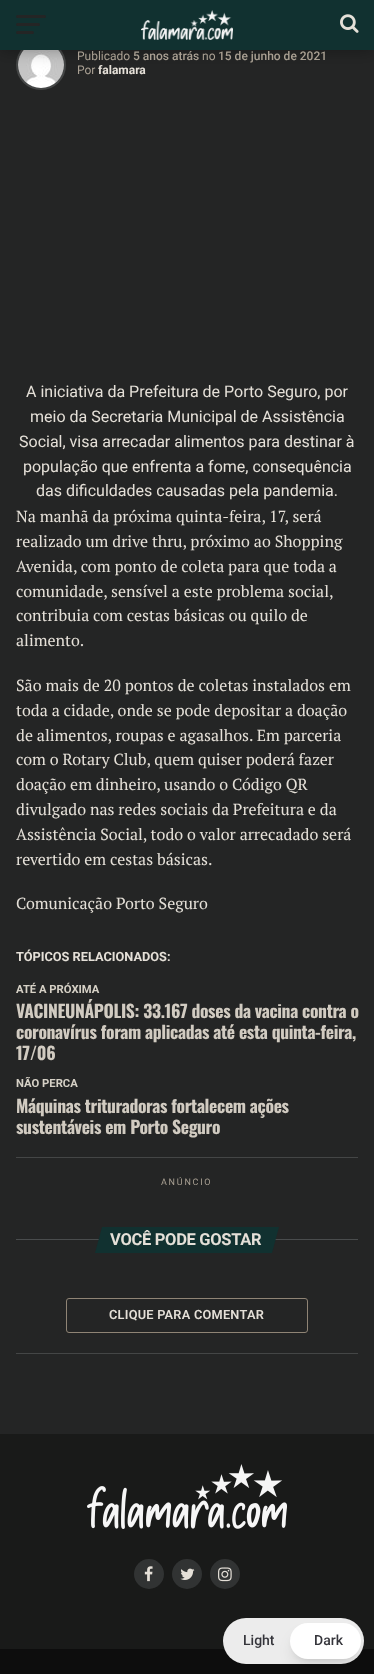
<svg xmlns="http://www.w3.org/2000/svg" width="374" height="1674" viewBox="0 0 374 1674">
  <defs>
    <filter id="blur1" x="-50%" y="-200%" width="200%" height="500%"><feGaussianBlur stdDeviation="8"/></filter>
    <filter id="blur2" x="-50%" y="-200%" width="200%" height="500%"><feGaussianBlur stdDeviation="7.5"/></filter>
    <filter id="blur3" x="-50%" y="-200%" width="200%" height="500%"><feGaussianBlur stdDeviation="3"/></filter>
  </defs>
  <rect width="100%" height="100%" fill="#242525"/>
  <circle cx="41" cy="65" r="24" fill="none" stroke="#444646" stroke-width="2"/>
  <image x="18" y="50" width="46" height="38" href="img3.png"/>
  <rect x="0" y="1" width="374" height="50" fill="#0d0d0d" fill-opacity="0.3" filter="url(#blur1)"/>
  <rect x="0" y="0" width="374" height="50" fill="#113130"/>
  <rect x="16" y="15" width="30" height="3" rx="1.5" fill="#242525"/>
  <rect x="16" y="23" width="24" height="3" rx="1.5" fill="#242525"/>
  <rect x="16" y="31" width="18" height="3" rx="1.5" fill="#242525"/>
  <image x="141" y="10" width="92" height="30" href="img1.png"/>
  <image x="340" y="14" width="19" height="19" href="img2.png"/>
  <text x="77" y="60" font-family="Roboto" font-size="12" fill="#a9a093">Publicado</text>
  <text x="133" y="60" font-family="Roboto" font-size="12" font-weight="500" fill="#a9a093">5 anos atrás</text>
  <text x="202" y="60" font-family="Roboto" font-size="12" fill="#a9a093">no</text>
  <text x="218" y="60" font-family="Roboto" font-size="12" font-weight="500" fill="#a9a093">15 de junho de 2021</text>
  <text x="77" y="74" font-family="Roboto" font-size="12" fill="#a9a093">Por</text>
  <text x="98" y="74" font-family="Roboto" font-size="12" font-weight="bold" fill="#e5e0d8">falamara</text>
  <text x="26" y="397" font-family="Roboto" font-size="16" fill="#e5e0d8">A iniciativa da Prefeitura de Porto Seguro, por</text>
  <text x="30" y="422" font-family="Roboto" font-size="16" fill="#e5e0d8">meio da Secretaria Municipal de Assistência</text>
  <text x="19" y="447" font-family="Roboto" font-size="16" fill="#e5e0d8">Social, visa arrecadar alimentos para destinar à</text>
  <text x="23" y="472" font-family="Roboto" font-size="16" fill="#e5e0d8">população que enfrenta a fome, consequência</text>
  <text x="36" y="496" font-family="Roboto" font-size="16" fill="#e5e0d8">das dificuldades causadas pela pandemia.</text>
  <text x="16" y="522" font-family="PT Serif" font-size="16" fill="#e5e0d8">Na manhã da próxima quinta-feira, 17, será</text>
  <text x="16" y="547" font-family="PT Serif" font-size="16" fill="#e5e0d8">realizado um drive thru, próximo ao Shopping</text>
  <text x="16" y="572" font-family="PT Serif" font-size="16" fill="#e5e0d8">Avenida, com ponto de coleta para que toda a</text>
  <text x="16" y="597" font-family="PT Serif" font-size="16" fill="#e5e0d8">comunidade, sensível a este problema social,</text>
  <text x="16" y="621" font-family="PT Serif" font-size="16" fill="#e5e0d8">contribuia com cestas básicas ou quilo de</text>
  <text x="16" y="646" font-family="PT Serif" font-size="16" fill="#e5e0d8">alimento.</text>
  <text x="16" y="691" font-family="PT Serif" font-size="16" fill="#e5e0d8">São mais de 20 pontos de coletas instalados em</text>
  <text x="16" y="716" font-family="PT Serif" font-size="16" fill="#e5e0d8">toda a cidade, onde se pode depositar a doação</text>
  <text x="16" y="741" font-family="PT Serif" font-size="16" fill="#e5e0d8">de alimentos, roupas e agasalhos. Em parceria</text>
  <text x="16" y="765" font-family="PT Serif" font-size="16" fill="#e5e0d8">com o Rotary Club, quem quiser poderá fazer</text>
  <text x="16" y="790" font-family="PT Serif" font-size="16" fill="#e5e0d8">doação em dinheiro, usando o Código QR</text>
  <text x="16" y="815" font-family="PT Serif" font-size="16" fill="#e5e0d8">divulgado nas redes sociais da Prefeitura e da</text>
  <text x="16" y="840" font-family="PT Serif" font-size="16" fill="#e5e0d8">Assistência Social, todo o valor arrecadado será</text>
  <text x="16" y="865" font-family="PT Serif" font-size="16" fill="#e5e0d8">revertido em cestas básicas.</text>
  <text x="16" y="909" font-family="PT Serif" font-size="16" fill="#e5e0d8">Comunicação Porto Seguro</text>
  <text x="16" y="961" font-family="Roboto" font-size="12.75" font-weight="bold" fill="#e5e0d8">TÓPICOS RELACIONADOS:</text>
  <rect x="16" y="1157" width="342" height="1" fill="#444646"/>
  <text x="16" y="993" font-family="Roboto" font-size="11.25" font-weight="bold" fill="#d6d1c6">ATÉ A PRÓXIMA</text>
  <text x="16" y="1018" font-family="Oswald" font-size="17.6" font-weight="bold" letter-spacing="-0.35" fill="#d1cbc1">VACINEUNÁPOLIS: 33.167 doses da vacina contra o</text>
  <text x="16" y="1039" font-family="Oswald" font-size="17.6" font-weight="bold" letter-spacing="-0.35" fill="#d1cbc1">coronavírus foram aplicadas até esta quinta-feira,</text>
  <text x="16" y="1060" font-family="Oswald" font-size="17.6" font-weight="bold" letter-spacing="-0.35" fill="#d1cbc1">17/06</text>
  <text x="16" y="1087" font-family="Roboto" font-size="11.25" font-weight="bold" fill="#d6d1c6">NÃO PERCA</text>
  <text x="16" y="1113" font-family="Oswald" font-size="17.6" font-weight="bold" letter-spacing="-0.35" fill="#d1cbc1">Máquinas trituradoras fortalecem ações</text>
  <text x="16" y="1134" font-family="Oswald" font-size="17.6" font-weight="bold" letter-spacing="-0.35" fill="#d1cbc1">sustentáveis em Porto Seguro</text>
  <text x="161" y="1185" font-family="Roboto" font-size="9" letter-spacing="1.75" fill="#a9a093">ANÚNCIO</text>
  <rect x="16" y="1239" width="342" height="1" fill="#494c4d"/>
  <path d="M102 1227H279L272 1253H95Z" fill="#113130"/>
  <text x="110" y="1245" font-family="Roboto" font-size="16.5" font-weight="bold" letter-spacing="-0.3" fill="#e5e0d8">VOCÊ PODE GOSTAR</text>
  <rect x="66.5" y="1298.5" width="241" height="34" rx="2.5" fill="none" stroke="#8f8475"/>
  <text x="109" y="1319" font-family="Roboto" font-size="12.75" font-weight="600" letter-spacing="0.25" fill="#e5e0d8">CLIQUE PARA COMENTAR</text>
  <rect x="16" y="1353" width="342" height="1" fill="#444646"/>
  <rect x="0" y="1434" width="374" height="215" fill="#191a19"/>
  <image x="87" y="1464" width="200" height="65" href="img4.png"/>
  <circle cx="149" cy="1574" r="15" fill="#313333"/>
  <image x="144" y="1566" width="9" height="16" href="img5.png"/>
  <circle cx="187" cy="1574" r="15" fill="#313333"/>
  <image x="180" y="1568" width="15" height="12" href="img6.png"/>
  <circle cx="225" cy="1574" r="15" fill="#313333"/>
  <image x="218" y="1567" width="14" height="15" href="img7.png"/>
  <rect x="0" y="1649" width="374" height="25" fill="#0d0d0d"/>
  <rect x="223" y="1618" width="141" height="46" rx="23" fill="#ececec"/>
  <rect x="293" y="1636" width="65" height="30" rx="15" fill="#000000" fill-opacity="0.1" filter="url(#blur2)"/>
  <text x="243" y="1645" font-family="Roboto" font-size="14" font-weight="500" fill="#35353b">Light</text>
  <rect x="294" y="1631" width="63" height="28" rx="14" fill="#000000" fill-opacity="0.1" filter="url(#blur3)"/>
  <rect x="290" y="1623" width="71" height="36" rx="18" fill="#ffffff"/>
  <text x="314" y="1645" font-family="Roboto" font-size="14" font-weight="500" fill="#35353b">Dark</text>
</svg>
